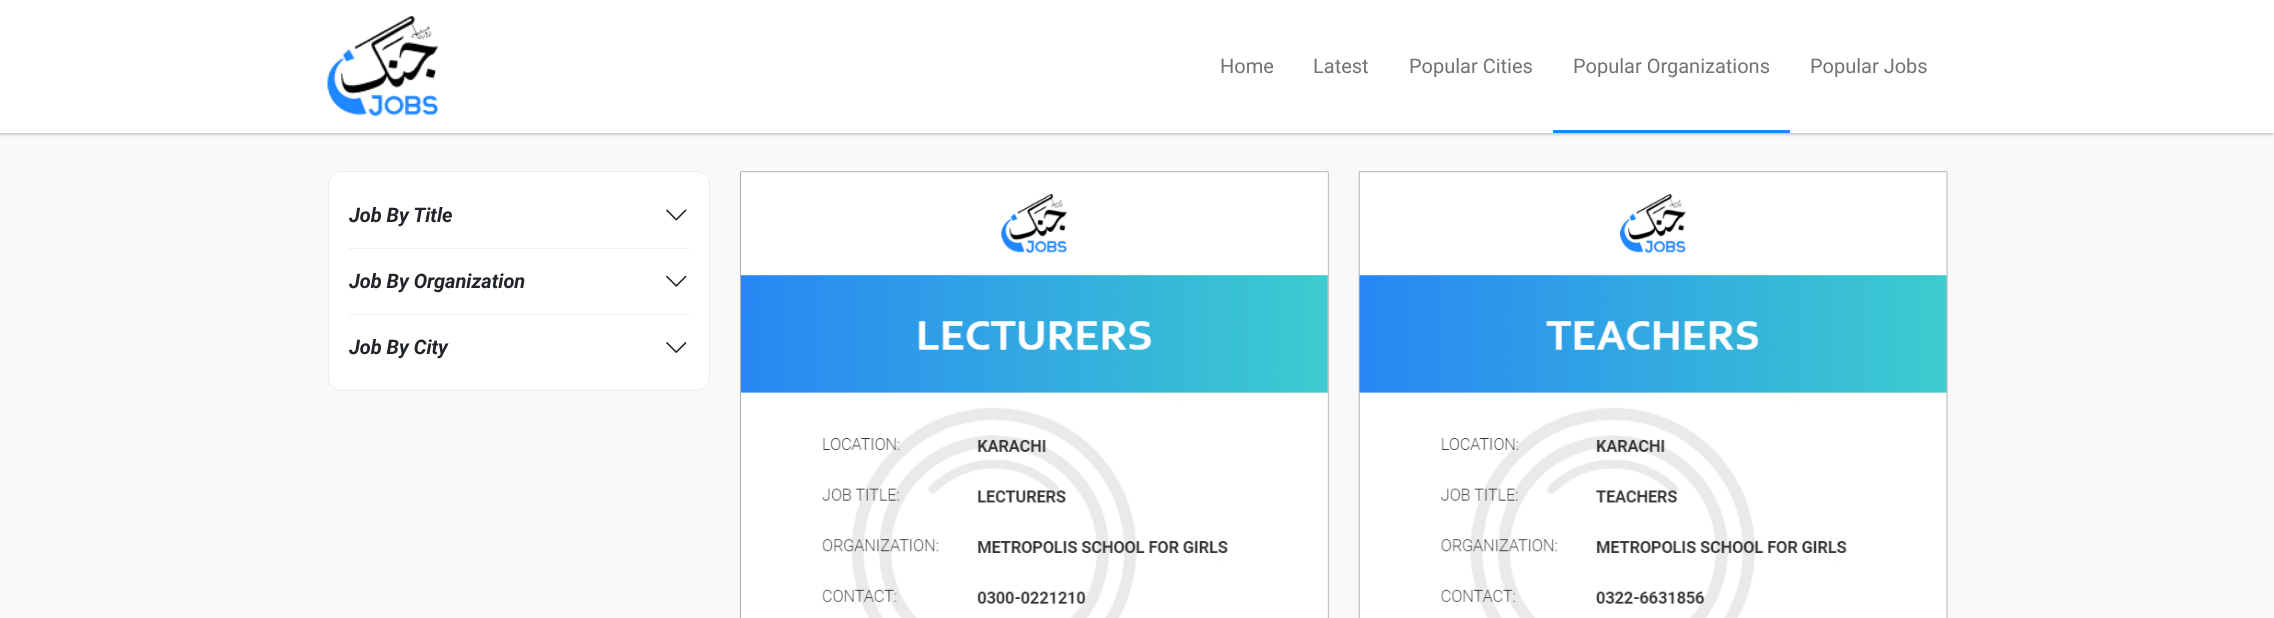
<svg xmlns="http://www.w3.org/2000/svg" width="2274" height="618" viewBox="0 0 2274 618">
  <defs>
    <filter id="blur1" x="-50%" y="-200%" width="200%" height="500%"><feGaussianBlur stdDeviation="2"/></filter>
  </defs>
  <rect width="100%" height="100%" fill="#f9f9f9"/>
  <rect x="-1" y="0" width="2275" height="133" fill="#000000" fill-opacity="0.43" filter="url(#blur1)"/>
  <rect x="0" y="0" width="2274" height="133" fill="#ffffff"/>
  <image x="327" y="16" width="112" height="101" href="img1.png"/>
  <text x="1220" y="73" font-family="Roboto" font-size="20" fill="#737373">Home</text>
  <text x="1313" y="73" font-family="Roboto" font-size="20" fill="#737373">Latest</text>
  <text x="1409" y="73" font-family="Roboto" font-size="20" fill="#737373">Popular Cities</text>
  <text x="1573" y="73" font-family="Roboto" font-size="20" fill="#737373">Popular Organizations</text>
  <rect x="1553" y="130" width="237" height="3" fill="#1e86ff"/>
  <text x="1810" y="73" font-family="Roboto" font-size="20" fill="#737373">Popular Jobs</text>
  <rect x="328.5" y="171.5" width="381" height="219" rx="12.5" fill="#ffffff" stroke="#ececec"/>
  <rect x="349" y="248" width="340" height="1" fill="#efefef"/>
  <text x="349" y="222" font-family="Roboto" font-size="20" font-weight="bold" font-style="italic" fill="#212529">Job By Title</text>
  <image x="666" y="209" width="21" height="12" href="img2.png"/>
  <rect x="349" y="314" width="340" height="1" fill="#efefef"/>
  <text x="349" y="288" font-family="Roboto" font-size="20" font-weight="bold" font-style="italic" fill="#212529">Job By Organization</text>
  <image x="666" y="275" width="21" height="12" href="img3.png"/>
  <text x="349" y="354" font-family="Roboto" font-size="20" font-weight="bold" font-style="italic" fill="#212529">Job By City</text>
  <image x="666" y="342" width="21" height="11" href="img4.png"/>
  <image x="740" y="171" width="589" height="447" href="img5.png"/>
  <image x="1358" y="171" width="590" height="447" href="img6.png"/>
</svg>
